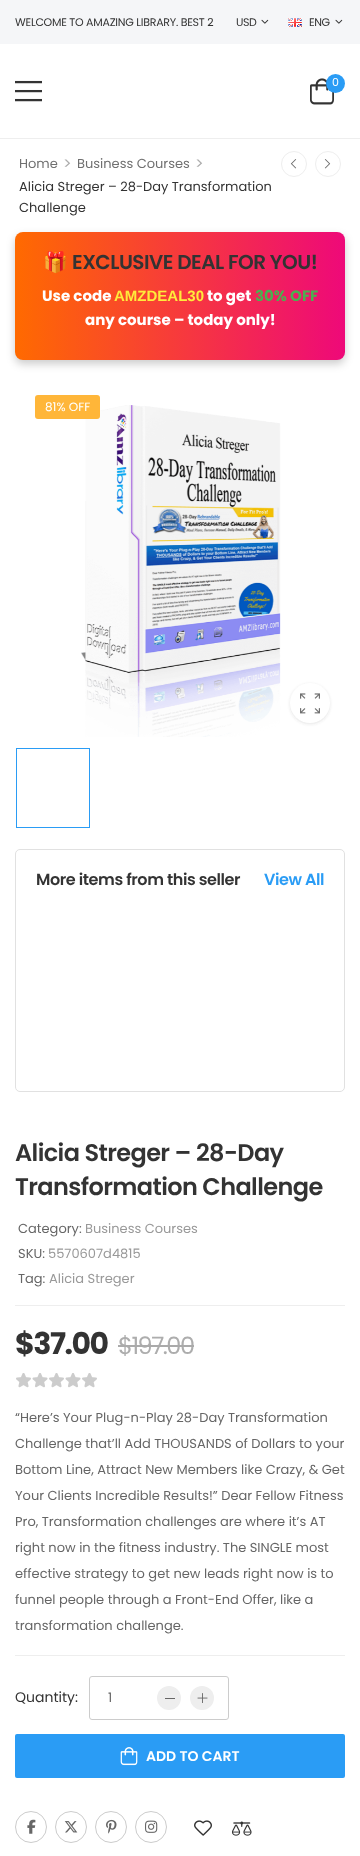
<svg xmlns="http://www.w3.org/2000/svg" width="360" height="1856" viewBox="0 0 360 1856">
  <defs>
    <filter id="blur1" x="-50%" y="-200%" width="200%" height="500%"><feGaussianBlur stdDeviation="4"/></filter>
    <linearGradient id="g1" gradientUnits="userSpaceOnUse" x1="15" y1="296" x2="345" y2="296"><stop offset="0" stop-color="#ff6a00"/><stop offset="1" stop-color="#ee0979"/></linearGradient>
    <filter id="blur2" x="-50%" y="-200%" width="200%" height="500%"><feGaussianBlur stdDeviation="1.5"/></filter>
  </defs>
  <rect width="100%" height="100%" fill="#ffffff"/>
  <rect x="0" y="0" width="360" height="44" fill="#f5f6f8"/>
  <text x="15" y="26" font-family="Poppins" font-size="11" letter-spacing="-0.25" fill="#333333">WELCOME TO AMAZING LIBRARY. BEST 2</text>
  <text x="236" y="26" font-family="Poppins" font-size="11" letter-spacing="-0.4" fill="#333333">USD</text>
  <image x="261" y="19" width="8" height="5" href="img1.png"/>
  <image x="288" y="18" width="14" height="9" href="img2.png"/>
  <text x="309" y="26" font-family="Poppins" font-size="11" letter-spacing="-0.4" fill="#333333">ENG</text>
  <image x="335" y="19" width="8" height="5" href="img1.png"/>
  <rect x="0" y="138" width="360" height="1" fill="#eeeeee"/>
  <image x="15" y="80" width="27" height="22" href="img3.png"/>
  <image x="310" y="78" width="24" height="27" href="img4.png"/>
  <circle cx="335.5" cy="83.5" r="9.5" fill="#2a9cf5"/>
  <text x="332" y="86" font-family="Poppins" font-size="11" letter-spacing="-0.4" fill="#ffffff">0</text>
  <text x="19" y="168" font-family="Poppins" font-size="13" fill="#707070">Home</text>
  <text x="63" y="169" font-family="Poppins" font-size="16" fill="#adadad">&gt;</text>
  <text x="77" y="168" font-family="Poppins" font-size="13" fill="#707070">Business Courses</text>
  <text x="195" y="169" font-family="Poppins" font-size="16" fill="#adadad">&gt;</text>
  <text x="19" y="191" font-family="Poppins" font-size="13" fill="#333333">Alicia Streger – 28-Day Transformation</text>
  <text x="19" y="212" font-family="Poppins" font-size="13" fill="#333333">Challenge</text>
  <circle cx="294" cy="164" r="12.5" fill="none" stroke="#eeeeee"/>
  <image x="290" y="159" width="7" height="10" href="img5.png"/>
  <circle cx="328" cy="164" r="12.5" fill="none" stroke="#eeeeee"/>
  <image x="324" y="159" width="7" height="10" href="img6.png"/>
  <rect x="15" y="236" width="330" height="128" rx="8" fill="#000000" fill-opacity="0.2" filter="url(#blur1)"/>
  <rect x="15" y="232" width="330" height="128" rx="8" fill="url(#g1)"/>
  <text x="43" y="269" font-family="Noto Color Emoji" font-size="20" font-weight="bold" letter-spacing="-0.5" fill="#333333">🎁</text>
  <text x="72" y="269" font-family="Poppins" font-size="20" font-weight="600" letter-spacing="-0.5" fill="#333333">EXCLUSIVE DEAL FOR YOU!</text>
  <text x="42" y="301" font-family="Poppins" font-size="15" font-weight="bold" fill="#ffffff">Use code</text>
  <text x="114" y="301" font-family="Liberation Sans" font-size="15" font-weight="bold" fill="#ffeb3b">AMZDEAL30</text>
  <text x="207" y="301" font-family="Poppins" font-size="15" font-weight="bold" fill="#ffffff">to get</text>
  <text x="255" y="301" font-family="Poppins" font-size="15" font-weight="bold" fill="#4caf50">30% OFF</text>
  <text x="85" y="325" font-family="Poppins" font-size="15" font-weight="bold" fill="#ffffff">any course – today only!</text>
  <image x="81" y="405" width="200" height="332" href="img7.png"/>
  <rect x="35" y="395" width="65" height="24" rx="3" fill="#ffb639"/>
  <text x="45" y="411" font-family="Poppins" font-size="12" fill="#ffffff">81% OFF</text>
  <rect x="290" y="684" width="40" height="40" rx="20" fill="#4d4d4d" fill-opacity="0.15" filter="url(#blur2)"/>
  <circle cx="310" cy="703" r="20" fill="#ffffff"/>
  <image x="300" y="693" width="20" height="21" href="img8.png"/>
  <rect x="16.5" y="748.5" width="73" height="79" fill="none" stroke="#2a9cf5"/>
  <rect x="15.5" y="849.5" width="329" height="242" rx="4.5" fill="none" stroke="#e1e1e1"/>
  <text x="36" y="885" font-family="Poppins" font-size="16" font-weight="600" letter-spacing="-0.4" fill="#333333">More items from this seller</text>
  <text x="264" y="885" font-family="Poppins" font-size="16" font-weight="600" letter-spacing="-0.4" fill="#2a9cf5">View All</text>
  <text x="15" y="1161" font-family="Poppins" font-size="24" font-weight="600" letter-spacing="-0.6" fill="#333333">Alicia Streger – 28-Day</text>
  <text x="15" y="1195" font-family="Poppins" font-size="24" font-weight="600" letter-spacing="-0.6" fill="#333333">Transformation Challenge</text>
  <text x="18" y="1233" font-family="Poppins" font-size="13" fill="#666666">Category:</text>
  <text x="85" y="1233" font-family="Poppins" font-size="13" fill="#999999">Business Courses</text>
  <text x="18" y="1258" font-family="Poppins" font-size="13" fill="#666666">SKU:</text>
  <text x="48" y="1258" font-family="Poppins" font-size="13" fill="#999999">5570607d4815</text>
  <text x="18" y="1283" font-family="Poppins" font-size="13" fill="#666666">Tag:</text>
  <text x="49" y="1283" font-family="Poppins" font-size="13" fill="#999999">Alicia Streger</text>
  <rect x="15" y="1305" width="330" height="1" fill="#eeeeee"/>
  <text x="15" y="1354" font-family="Poppins" font-size="30" font-weight="bold" letter-spacing="-1.5" fill="#333333">$37.00</text>
  <text x="118" y="1354" font-family="Poppins" font-size="24" letter-spacing="-1.5" fill="#adadad">$197.00</text>
  <rect x="118" y="1345" width="76" height="2" fill="#aaaaaa"/>
  <image x="16" y="1373" width="81" height="15" href="img9.png"/>
  <rect x="15" y="1655" width="330" height="1" fill="#eeeeee"/>
  <text x="15" y="1422" font-family="Poppins" font-size="13" fill="#666666">“Here’s Your Plug-n-Play 28-Day Transformation</text>
  <text x="15" y="1448" font-family="Poppins" font-size="13" fill="#666666">Challenge that’ll Add THOUSANDS of Dollars to your</text>
  <text x="15" y="1474" font-family="Poppins" font-size="13" fill="#666666">Bottom Line, Attract New Members like Crazy, &amp; Get</text>
  <text x="15" y="1500" font-family="Poppins" font-size="13" fill="#666666">Your Clients Incredible Results!” Dear Fellow Fitness</text>
  <text x="15" y="1526" font-family="Poppins" font-size="13" fill="#666666">Pro, Transformation challenges are where it’s AT</text>
  <text x="15" y="1552" font-family="Poppins" font-size="13" fill="#666666">right now in the fitness industry. The SINGLE most</text>
  <text x="15" y="1578" font-family="Poppins" font-size="13" fill="#666666">effective strategy to get new leads right now is to</text>
  <text x="15" y="1604" font-family="Poppins" font-size="13" fill="#666666">funnel people through a Front-End Offer, like a</text>
  <text x="15" y="1630" font-family="Poppins" font-size="13" fill="#666666">transformation challenge.</text>
  <text x="15" y="1702" font-family="Poppins" font-size="14" fill="#333333">Quantity:</text>
  <rect x="89.5" y="1676.5" width="139" height="43" rx="2.5" fill="none" stroke="#cccccc"/>
  <text x="108" y="1702" font-family="Poppins" font-size="13" fill="#666666">1</text>
  <circle cx="169" cy="1698" r="12" fill="#eeeeee"/>
  <rect x="165" y="1698" width="10" height="1" fill="#666666"/>
  <circle cx="202" cy="1698" r="12" fill="#eeeeee"/>
  <image x="197" y="1693" width="11" height="10" href="img10.png"/>
  <rect x="15" y="1734" width="330" height="44" rx="2" fill="#2a9cf5"/>
  <image x="120" y="1747" width="18" height="19" href="img11.png"/>
  <text x="146" y="1761" font-family="Poppins" font-size="14" font-weight="600" fill="#ffffff">ADD TO CART</text>
  <circle cx="31" cy="1827" r="15.5" fill="none" stroke="#cccccc"/>
  <image x="27" y="1819" width="9" height="15" href="img12.png"/>
  <circle cx="71" cy="1827" r="15.5" fill="none" stroke="#cccccc"/>
  <image x="64" y="1821" width="14" height="12" href="img13.png"/>
  <circle cx="111" cy="1827" r="15.5" fill="none" stroke="#cccccc"/>
  <image x="106" y="1819" width="11" height="15" href="img14.png"/>
  <circle cx="151" cy="1827" r="15.5" fill="none" stroke="#cccccc"/>
  <image x="145" y="1820" width="13" height="13" href="img15.png"/>
  <image x="194" y="1820" width="18" height="16" href="img16.png"/>
  <image x="232" y="1821" width="20" height="15" href="img17.png"/>
</svg>
